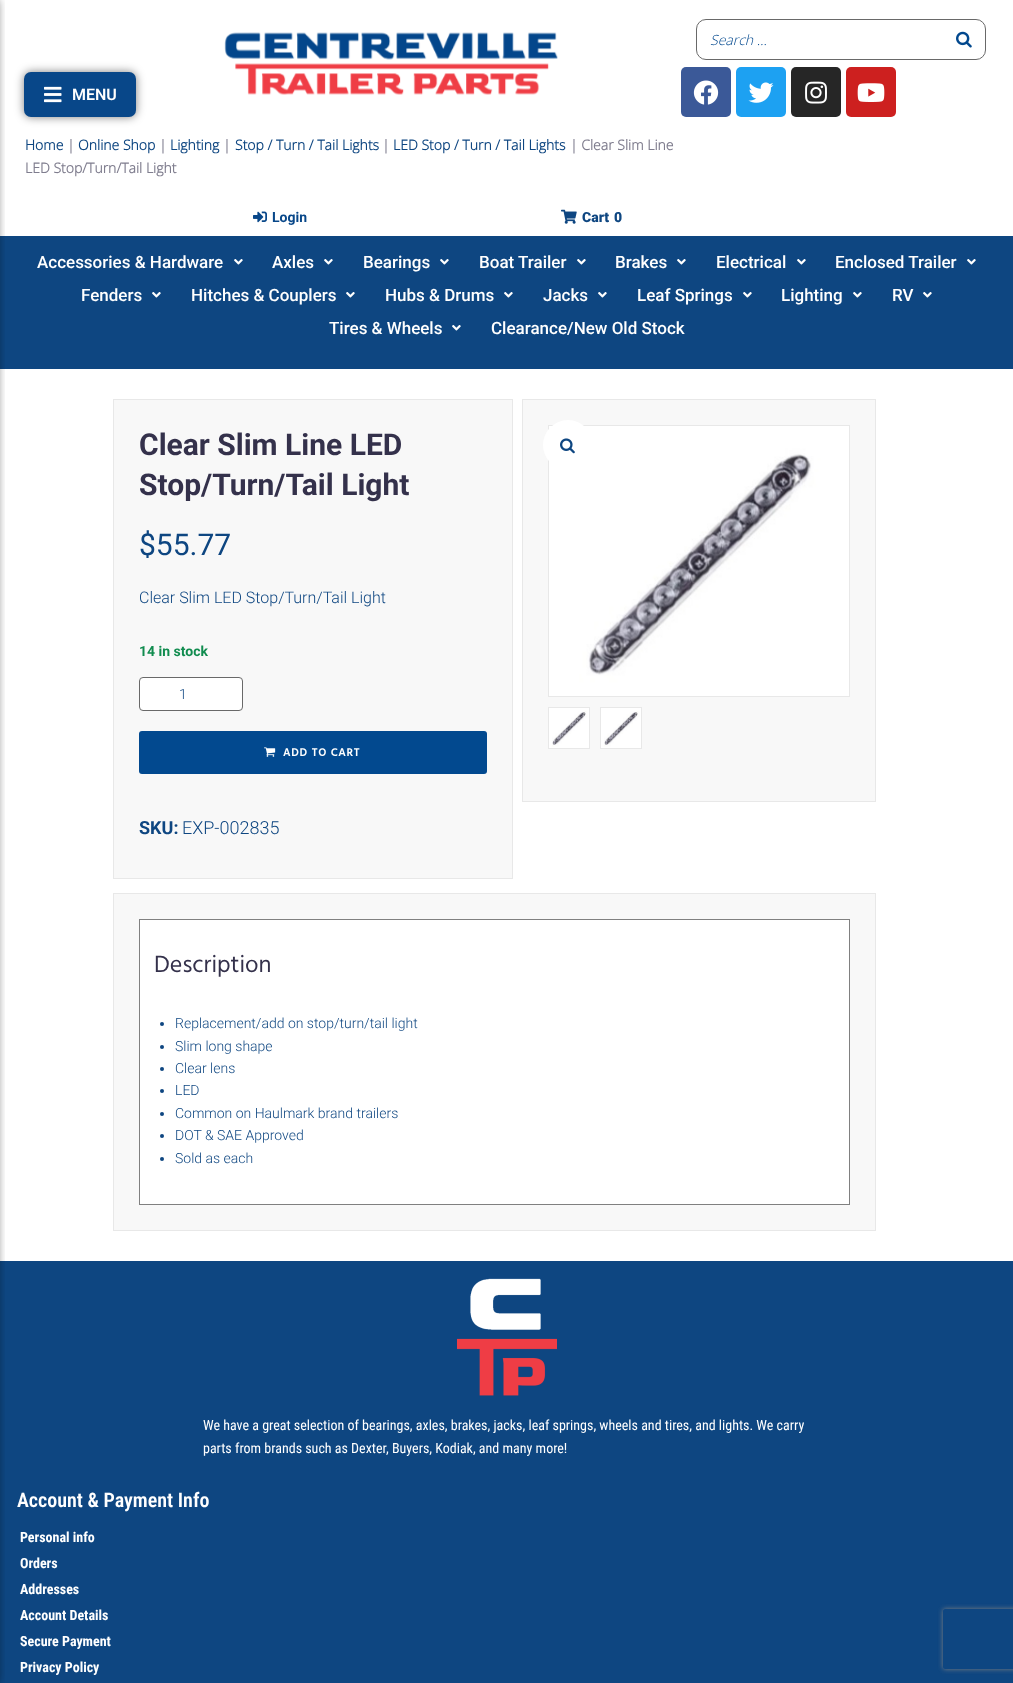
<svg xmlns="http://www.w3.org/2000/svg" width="1013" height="1683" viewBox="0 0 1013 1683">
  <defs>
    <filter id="blur1" x="-50%" y="-200%" width="200%" height="500%"><feGaussianBlur stdDeviation="5"/></filter>
    <clipPath id="clip1"><path d="M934 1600H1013V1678H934ZM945 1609H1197C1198 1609 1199 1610 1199 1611V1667C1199 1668 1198 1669 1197 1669H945C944 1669 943 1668 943 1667V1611C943 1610 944 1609 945 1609Z" clip-rule="evenodd"/></clipPath>
    <filter id="blur2" x="-50%" y="-200%" width="200%" height="500%"><feGaussianBlur stdDeviation="2.5"/></filter>
  </defs>
  <rect width="100%" height="100%" fill="#ffffff"/>
  <image x="224" y="32" width="334" height="63" href="img1.png"/>
  <rect x="696.5" y="19.5" width="289" height="40" rx="9.5" fill="none" stroke="#696969"/>
  <text x="710" y="45" font-family="Open Sans" font-size="14" font-weight="300" font-style="italic" fill="#02488e">Search …</text>
  <image x="956" y="31" width="16" height="17" href="img2.png"/>
  <rect x="681" y="67" width="50" height="50" rx="5" fill="#3b5998"/>
  <image x="693" y="80" width="26" height="25" href="img3.png"/>
  <rect x="736" y="67" width="50" height="50" rx="5" fill="#1da1f2"/>
  <image x="748" y="82" width="26" height="21" href="img4.png"/>
  <rect x="791" y="67" width="50" height="50" rx="5" fill="#262626"/>
  <image x="805" y="81" width="22" height="23" href="img5.png"/>
  <rect x="846" y="67" width="50" height="50" rx="5" fill="#cd201f"/>
  <image x="857" y="83" width="28" height="19" href="img6.png"/>
  <rect x="0" y="236" width="1013" height="133" fill="#0e4681"/>
  <rect x="0" y="1261" width="1013" height="422" fill="#0e4681"/>
  <rect x="-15" y="0" width="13" height="1683" fill="#000000" fill-opacity="0.5" filter="url(#blur1)"/>
  <rect x="24" y="72" width="112" height="45" rx="7" fill="#000000" fill-opacity="0.5" filter="url(#blur1)"/>
  <rect x="24" y="72" width="112" height="45" rx="7" fill="#084789"/>
  <image x="44" y="86" width="18" height="17" href="img7.png"/>
  <text x="72" y="100" font-family="Roboto" font-size="16" font-weight="600" fill="#ffffff">MENU</text>
  <text x="25" y="150" font-family="Open Sans" font-size="14" font-weight="bold" fill="#0e4681">Home</text>
  <text x="67" y="150" font-family="Open Sans" font-size="14" font-weight="bold" fill="#7f7d8e">|</text>
  <text x="78" y="150" font-family="Open Sans" font-size="14" font-weight="bold" fill="#0e4681">Online Shop</text>
  <text x="159" y="150" font-family="Open Sans" font-size="14" font-weight="bold" fill="#7f7d8e">|</text>
  <text x="170" y="150" font-family="Open Sans" font-size="14" font-weight="bold" fill="#0e4681">Lighting</text>
  <text x="223" y="150" font-family="Open Sans" font-size="14" font-weight="bold" fill="#7f7d8e">|</text>
  <text x="235" y="150" font-family="Open Sans" font-size="14" font-weight="bold" fill="#0e4681">Stop / Turn / Tail Lights</text>
  <text x="382" y="150" font-family="Open Sans" font-size="14" font-weight="bold" fill="#7f7d8e">|</text>
  <text x="393" y="150" font-family="Open Sans" font-size="14" font-weight="bold" fill="#0e4681">LED Stop / Turn / Tail Lights</text>
  <text x="570" y="150" font-family="Open Sans" font-size="14" font-weight="bold" fill="#7f7d8e">| Clear Slim Line</text>
  <text x="25" y="173" font-family="Open Sans" font-size="14" font-weight="bold" fill="#7f7d8e">LED Stop/Turn/Tail Light</text>
  <image x="253" y="211" width="14" height="12" href="img8.png"/>
  <text x="272" y="222" font-family="Roboto" font-size="14" font-weight="bold" fill="#084789">Login</text>
  <image x="561" y="209" width="16" height="15" href="img9.png"/>
  <text x="582" y="222" font-family="Roboto" font-size="14" font-weight="900" fill="#0e4681">Cart</text>
  <text x="614" y="222" font-family="Roboto" font-size="14" font-weight="900" fill="#0e4681">0</text>
  <text x="37" y="268" font-family="Roboto" font-size="17" font-weight="500" fill="#ffffff">Accessories &amp; Hardware</text>
  <image x="234" y="259" width="9" height="6" href="img10.png"/>
  <text x="272" y="268" font-family="Roboto" font-size="17" font-weight="500" fill="#ffffff">Axles</text>
  <image x="324" y="259" width="9" height="6" href="img10.png"/>
  <text x="363" y="268" font-family="Roboto" font-size="17" font-weight="500" fill="#ffffff">Bearings</text>
  <image x="440" y="259" width="9" height="6" href="img10.png"/>
  <text x="479" y="268" font-family="Roboto" font-size="17" font-weight="500" fill="#ffffff">Boat Trailer</text>
  <image x="577" y="259" width="9" height="6" href="img10.png"/>
  <text x="615" y="268" font-family="Roboto" font-size="17" font-weight="500" fill="#ffffff">Brakes</text>
  <image x="677" y="259" width="9" height="6" href="img10.png"/>
  <text x="716" y="268" font-family="Roboto" font-size="17" font-weight="500" fill="#ffffff">Electrical</text>
  <image x="797" y="259" width="9" height="6" href="img10.png"/>
  <text x="835" y="268" font-family="Roboto" font-size="17" font-weight="500" fill="#ffffff">Enclosed Trailer</text>
  <image x="967" y="259" width="9" height="6" href="img10.png"/>
  <text x="81" y="301" font-family="Roboto" font-size="17" font-weight="500" fill="#ffffff">Fenders</text>
  <image x="152" y="292" width="9" height="6" href="img10.png"/>
  <text x="191" y="301" font-family="Roboto" font-size="17" font-weight="500" fill="#ffffff">Hitches &amp; Couplers</text>
  <image x="346" y="292" width="9" height="6" href="img10.png"/>
  <text x="385" y="301" font-family="Roboto" font-size="17" font-weight="500" fill="#ffffff">Hubs &amp; Drums</text>
  <image x="504" y="292" width="9" height="6" href="img10.png"/>
  <text x="543" y="301" font-family="Roboto" font-size="17" font-weight="500" fill="#ffffff">Jacks</text>
  <image x="598" y="292" width="9" height="6" href="img10.png"/>
  <text x="637" y="301" font-family="Roboto" font-size="17" font-weight="500" fill="#ffffff">Leaf Springs</text>
  <image x="743" y="292" width="9" height="6" href="img10.png"/>
  <text x="781" y="301" font-family="Roboto" font-size="17" font-weight="500" fill="#ffffff">Lighting</text>
  <image x="853" y="292" width="9" height="6" href="img10.png"/>
  <text x="892" y="301" font-family="Roboto" font-size="17" font-weight="500" fill="#ffffff">RV</text>
  <image x="923" y="292" width="9" height="6" href="img10.png"/>
  <text x="329" y="334" font-family="Roboto" font-size="17" font-weight="500" fill="#ffffff">Tires &amp; Wheels</text>
  <image x="452" y="325" width="9" height="6" href="img10.png"/>
  <text x="491" y="334" font-family="Roboto" font-size="17" font-weight="500" fill="#ffffff">Clearance/New Old Stock</text>
  <rect x="113.5" y="399.5" width="399" height="479" fill="#f8f8f8" stroke="#e8e8e8"/>
  <text x="139" y="455" font-family="Roboto" font-size="30" font-weight="bold" fill="#34314b">Clear Slim Line LED</text>
  <text x="139" y="495" font-family="Roboto" font-size="30" font-weight="bold" fill="#34314b">Stop/Turn/Tail Light</text>
  <text x="139" y="555" font-family="Roboto" font-size="30" fill="#0e4681">$55.77</text>
  <text x="139" y="603" font-family="Roboto" font-size="16" font-weight="300" fill="#0e4681">Clear Slim LED Stop/Turn/Tail Light</text>
  <text x="139" y="656" font-family="Roboto" font-size="14" font-weight="bold" fill="#118c4f">14 in stock</text>
  <rect x="139.5" y="677.5" width="103" height="33" rx="3.5" fill="#ffffff" stroke="#696969"/>
  <text x="179" y="699" font-family="Roboto" font-size="14" font-weight="300" fill="#0e4681">1</text>
  <rect x="139" y="731" width="348" height="43" rx="3" fill="#02498f"/>
  <image x="264" y="747" width="12" height="10" href="img11.png"/>
  <text x="283" y="756" font-family="Hind" font-size="11" font-weight="bold" letter-spacing="1" fill="#ffffff">ADD TO CART</text>
  <text x="139" y="834" font-family="Roboto" font-size="18" font-weight="bold" fill="#0e4681">SKU:</text>
  <text x="182" y="834" font-family="Roboto" font-size="18" font-weight="300" fill="#0e4681">EXP-002835</text>
  <rect x="522.5" y="399.5" width="353" height="402" fill="#f8f8f8" stroke="#e8e8e8"/>
  <rect x="548.5" y="425.5" width="301" height="271" fill="none" stroke="#e8e8e8"/>
  <image x="549" y="426" width="300" height="270" href="img13.png"/>
  <circle cx="568" cy="445" r="25" fill="#ffffff"/>
  <image x="560" y="438" width="15" height="16" href="img12.png"/>
  <rect x="548.5" y="707.5" width="41" height="41" fill="none" stroke="#e8e8e8"/>
  <image x="549" y="708" width="40" height="40" href="img14.png"/>
  <rect x="600.5" y="707.5" width="41" height="41" fill="none" stroke="#e8e8e8"/>
  <image x="601" y="708" width="40" height="40" href="img14.png"/>
  <rect x="113.5" y="893.5" width="762" height="337" fill="#f8f8f8" stroke="#e8e8e8"/>
  <rect x="139.5" y="919.5" width="710" height="285" fill="#ffffff" stroke="#808080"/>
  <text x="154" y="972" font-family="Hind" font-size="24" fill="#34314b">Description</text>
  <circle cx="162" cy="1024" r="2" fill="#0e4681"/>
  <text x="175" y="1028" font-family="Roboto" font-size="14" font-weight="300" fill="#0e4681">Replacement/add on stop/turn/tail light</text>
  <circle cx="162" cy="1047" r="2" fill="#0e4681"/>
  <text x="175" y="1051" font-family="Roboto" font-size="14" font-weight="300" fill="#0e4681">Slim long shape</text>
  <circle cx="162" cy="1069" r="2" fill="#0e4681"/>
  <text x="175" y="1073" font-family="Roboto" font-size="14" font-weight="300" fill="#0e4681">Clear lens</text>
  <circle cx="162" cy="1091" r="2" fill="#0e4681"/>
  <text x="175" y="1095" font-family="Roboto" font-size="14" font-weight="300" fill="#0e4681">LED</text>
  <circle cx="162" cy="1114" r="2" fill="#0e4681"/>
  <text x="175" y="1118" font-family="Roboto" font-size="14" font-weight="300" fill="#0e4681">Common on Haulmark brand trailers</text>
  <circle cx="162" cy="1136" r="2" fill="#0e4681"/>
  <text x="175" y="1140" font-family="Roboto" font-size="14" font-weight="300" fill="#0e4681">DOT &amp; SAE Approved</text>
  <circle cx="162" cy="1159" r="2" fill="#0e4681"/>
  <text x="175" y="1163" font-family="Roboto" font-size="14" font-weight="300" fill="#0e4681">Sold as each</text>
  <image x="457" y="1278" width="100" height="118" href="img15.png"/>
  <text x="203" y="1430" font-family="Roboto Condensed" font-size="14" fill="#ffffff">We have a great selection of bearings, axles, brakes, jacks, leaf springs, wheels and tires, and lights. We carry</text>
  <text x="203" y="1453" font-family="Roboto Condensed" font-size="14" fill="#ffffff">parts from brands such as Dexter, Buyers, Kodiak, and many more!</text>
  <text x="17" y="1507" font-family="Roboto Condensed" font-size="20" font-weight="600" fill="#ffffff">Account &amp; Payment Info</text>
  <text x="20" y="1542" font-family="Roboto Condensed" font-size="14" font-weight="bold" fill="#ffffff">Personal info</text>
  <text x="20" y="1568" font-family="Roboto Condensed" font-size="14" font-weight="bold" fill="#ffffff">Orders</text>
  <text x="20" y="1594" font-family="Roboto Condensed" font-size="14" font-weight="bold" fill="#ffffff">Addresses</text>
  <text x="20" y="1620" font-family="Roboto Condensed" font-size="14" font-weight="bold" fill="#ffffff">Account Details</text>
  <text x="20" y="1646" font-family="Roboto Condensed" font-size="14" font-weight="bold" fill="#ffffff">Secure Payment</text>
  <text x="20" y="1672" font-family="Roboto Condensed" font-size="14" font-weight="bold" fill="#ffffff">Privacy Policy</text>
  <g clip-path="url(#clip1)">
    <rect x="943" y="1609" width="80" height="60" rx="2" fill="#808080" filter="url(#blur2)"/>
  </g>
</svg>
